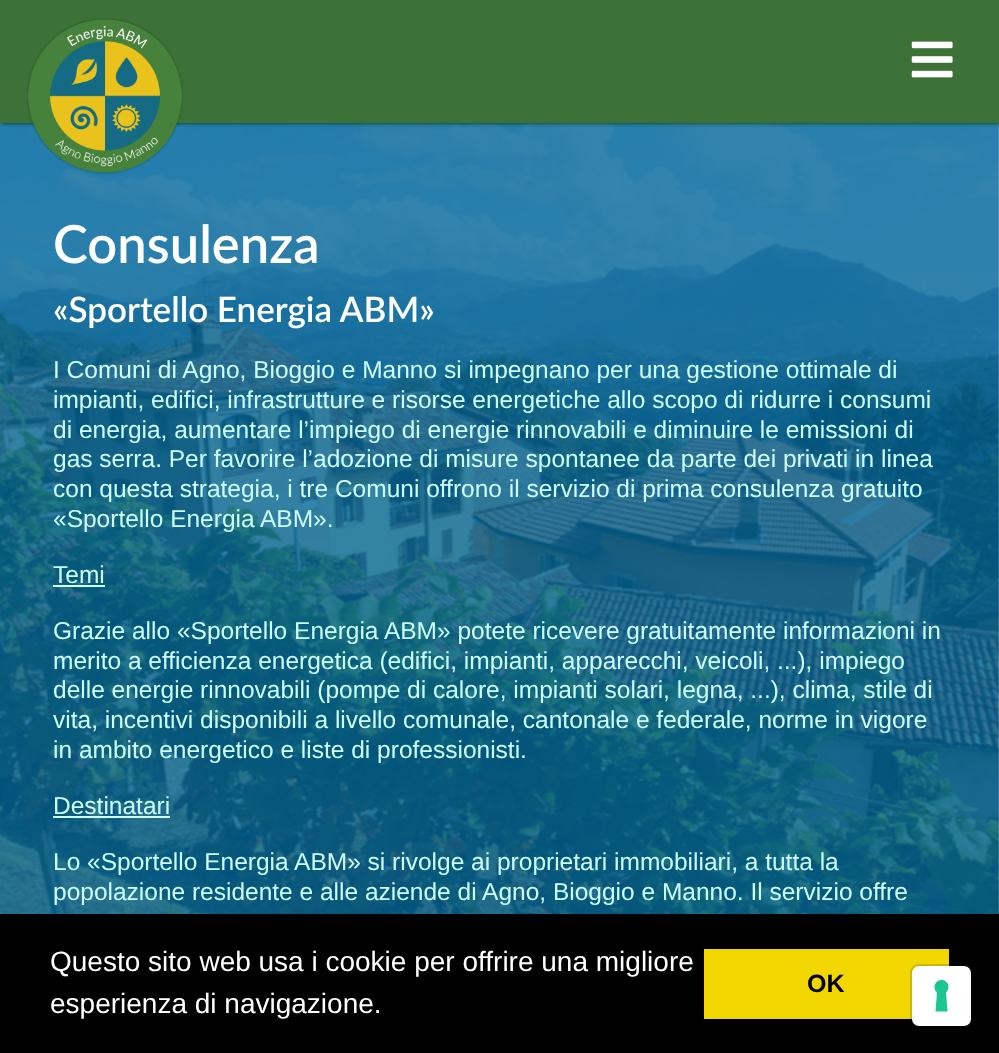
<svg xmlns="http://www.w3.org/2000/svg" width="999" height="1053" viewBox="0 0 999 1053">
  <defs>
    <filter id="blur1" x="-50%" y="-200%" width="200%" height="500%"><feGaussianBlur stdDeviation="2"/></filter>
  </defs>
  <rect width="100%" height="100%" fill="#ffffff"/>
  <image x="0" y="123" width="999" height="791" href="img1.png"/>
  <rect x="2" y="0" width="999" height="123" fill="#003300" filter="url(#blur1)"/>
  <rect x="0" y="0" width="999" height="123" fill="#3c7238"/>
  <image x="27" y="18" width="156" height="157" href="img2.png"/>
  <image x="911" y="41" width="42" height="37" href="img3.png"/>
  <text x="53" y="263" font-family="Lato" font-size="52.5" font-weight="600" fill="#ffffff">Consulenza</text>
  <text x="53" y="322" font-family="Lato" font-size="35" font-weight="600" fill="#ffffff">«Sportello Energia ABM»</text>
  <text x="53" y="378" font-family="Liberation Sans" font-size="24.5" fill="#ccffff">I Comuni di Agno, Bioggio e Manno si impegnano per una gestione ottimale di</text>
  <text x="53" y="408" font-family="Liberation Sans" font-size="24.5" fill="#ccffff">impianti, edifici, infrastrutture e risorse energetiche allo scopo di ridurre i consumi</text>
  <text x="53" y="438" font-family="Liberation Sans" font-size="24.5" fill="#ccffff">di energia, aumentare l’impiego di energie rinnovabili e diminuire le emissioni di</text>
  <text x="53" y="467" font-family="Liberation Sans" font-size="24.5" fill="#ccffff">gas serra. Per favorire l’adozione di misure spontanee da parte dei privati in linea</text>
  <text x="53" y="497" font-family="Liberation Sans" font-size="24.5" fill="#ccffff">con questa strategia, i tre Comuni offrono il servizio di prima consulenza gratuito</text>
  <text x="53" y="527" font-family="Liberation Sans" font-size="24.5" fill="#ccffff">«Sportello Energia ABM».</text>
  <text x="53" y="583" font-family="Liberation Sans" font-size="24.5" fill="#ccffff">Temi</text>
  <rect x="53" y="585" width="52" height="2" fill="#ccffff"/>
  <text x="53" y="639" font-family="Liberation Sans" font-size="24.5" fill="#ccffff">Grazie allo «Sportello Energia ABM» potete ricevere gratuitamente informazioni in</text>
  <text x="53" y="669" font-family="Liberation Sans" font-size="24.5" fill="#ccffff">merito a efficienza energetica (edifici, impianti, apparecchi, veicoli, ...), impiego</text>
  <text x="53" y="698" font-family="Liberation Sans" font-size="24.5" fill="#ccffff">delle energie rinnovabili (pompe di calore, impianti solari, legna, ...), clima, stile di</text>
  <text x="53" y="728" font-family="Liberation Sans" font-size="24.5" fill="#ccffff">vita, incentivi disponibili a livello comunale, cantonale e federale, norme in vigore</text>
  <text x="53" y="758" font-family="Liberation Sans" font-size="24.5" fill="#ccffff">in ambito energetico e liste di professionisti.</text>
  <text x="53" y="814" font-family="Liberation Sans" font-size="24.5" fill="#ccffff">Destinatari</text>
  <rect x="53" y="816" width="117" height="2" fill="#ccffff"/>
  <text x="53" y="870" font-family="Liberation Sans" font-size="24.5" fill="#ccffff">Lo «Sportello Energia ABM» si rivolge ai proprietari immobiliari, a tutta la</text>
  <text x="53" y="900" font-family="Liberation Sans" font-size="24.5" fill="#ccffff">popolazione residente e alle aziende di Agno, Bioggio e Manno. Il servizio offre</text>
  <rect x="0" y="914" width="999" height="139" fill="#000000"/>
  <text x="50" y="971" font-family="Liberation Sans" font-size="28" fill="#ffffff">Questo sito web usa i cookie per offrire una migliore</text>
  <text x="50" y="1013" font-family="Liberation Sans" font-size="28" fill="#ffffff">esperienza di navigazione.</text>
  <rect x="704" y="949" width="245" height="70" fill="#f1d600"/>
  <text x="807" y="992" font-family="Liberation Sans" font-size="25" font-weight="bold" fill="#000000">OK</text>
  <rect x="911" y="965" width="61" height="61" rx="8" fill="none" stroke="#000000" stroke-opacity="0.15" stroke-width="2"/>
  <rect x="912" y="966" width="59" height="60" rx="7" fill="#ffffff"/>
  <path d="M941.5 980C948 980 951 988 946 992.5L947.5 1011.5H935.5L937 992.5C932 988 935 980 941.5 980Z" fill="#1cc691" fill-rule="evenodd"/>
</svg>
